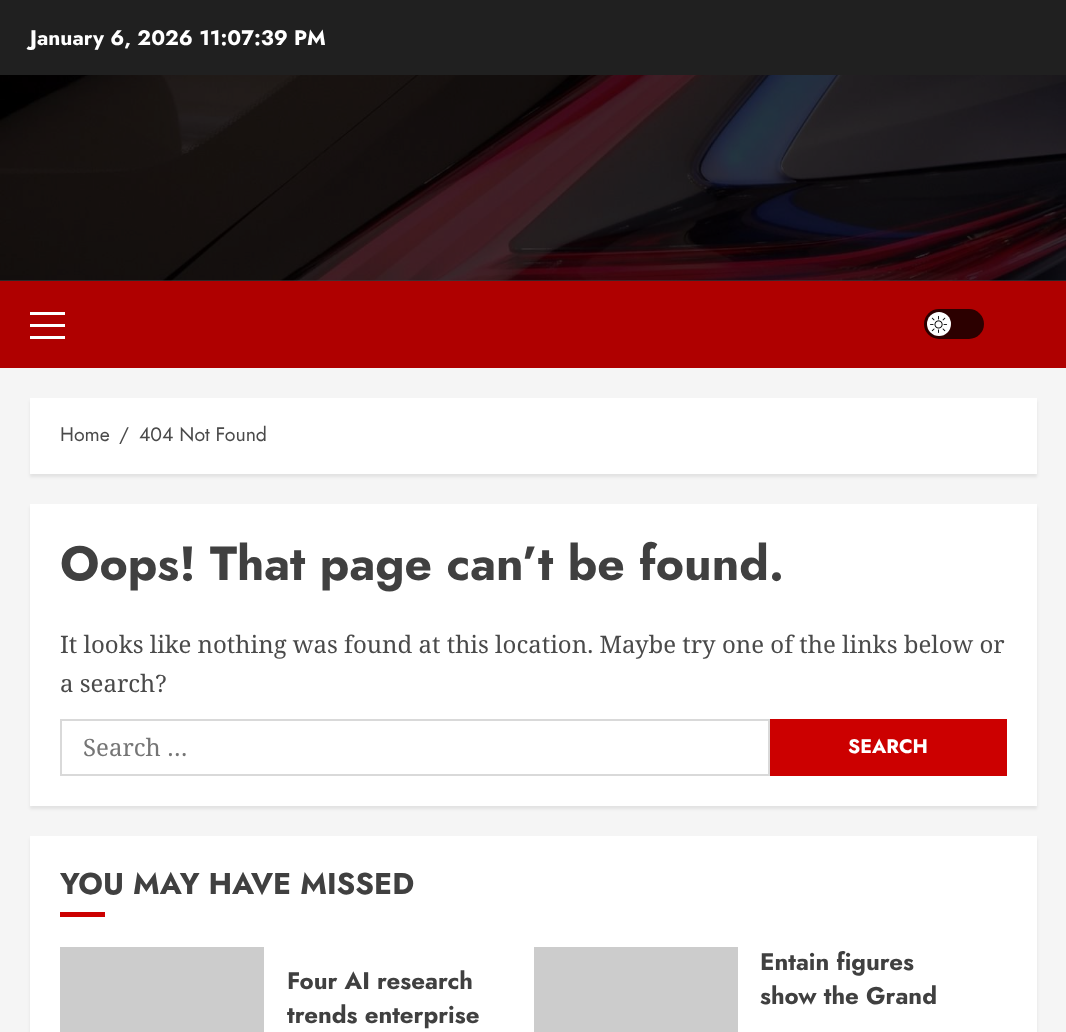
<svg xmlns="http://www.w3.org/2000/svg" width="1066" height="1032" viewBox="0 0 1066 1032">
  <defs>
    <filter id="blur1" x="-50%" y="-200%" width="200%" height="500%"><feGaussianBlur stdDeviation="1.5"/></filter>
  </defs>
  <rect width="100%" height="100%" fill="#f5f5f5"/>
  <rect x="0" y="0" width="1066" height="75" fill="#202020"/>
  <text x="30" y="45" font-family="Jost" font-size="21" font-weight="bold" fill="#ffffff">January 6, 2026 11:07:39 PM</text>
  <rect x="0" y="280" width="1066" height="1" fill="#404040"/>
  <image x="0" y="75" width="1066" height="206" href="img1.png"/>
  <rect x="0" y="281" width="1066" height="87" fill="#af0000"/>
  <rect x="30" y="324" width="35" height="3" fill="#ffffff"/>
  <rect x="30" y="312" width="35" height="3" fill="#ffffff"/>
  <rect x="30" y="336" width="35" height="3" fill="#ffffff"/>
  <rect x="924" y="309" width="60" height="30" rx="15" fill="#2c0000"/>
  <circle cx="939" cy="324" r="12" fill="#ffffff"/>
  <image x="930" y="315" width="18" height="18" href="img2.png"/>
  <rect x="30" y="401" width="1007" height="76" fill="#000000" fill-opacity="0.08" filter="url(#blur1)"/>
  <rect x="30" y="398" width="1007" height="76" fill="#ffffff"/>
  <text x="60" y="441" font-family="Jost" font-size="19.5" fill="#4a4a4a">Home</text>
  <text x="119" y="441" font-family="Jost" font-size="19.5" fill="#4a4a4a">/</text>
  <text x="139" y="441" font-family="Jost" font-size="19.5" fill="#4a4a4a">404 Not Found</text>
  <rect x="30" y="507" width="1007" height="302" fill="#000000" fill-opacity="0.08" filter="url(#blur1)"/>
  <rect x="30" y="504" width="1007" height="302" fill="#ffffff"/>
  <text x="60" y="580" font-family="Jost" font-size="48" font-weight="bold" fill="#404040">Oops! That page can’t be found.</text>
  <text x="60" y="653" font-family="Noto Serif" font-size="24" fill="#4a4a4a">It looks like nothing was found at this location. Maybe try one of the links below or</text>
  <text x="60" y="692" font-family="Noto Serif" font-size="24" fill="#4a4a4a">a search?</text>
  <rect x="61" y="720" width="708" height="55" fill="none" stroke="#d9d9d9" stroke-width="2"/>
  <text x="83" y="756" font-family="Noto Serif" font-size="24" fill="#757575">Search …</text>
  <rect x="770" y="719" width="237" height="57" fill="#cc0000"/>
  <text x="848" y="753" font-family="Jost" font-size="19.5" font-weight="bold" fill="#ffffff">SEARCH</text>
  <rect x="30" y="839" width="1007" height="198" fill="#000000" fill-opacity="0.08" filter="url(#blur1)"/>
  <rect x="30" y="836" width="1007" height="196" fill="#ffffff"/>
  <text x="60" y="894" font-family="Jost" font-size="30" font-weight="bold" fill="#404040">YOU MAY HAVE MISSED</text>
  <rect x="60" y="912" width="45" height="5" fill="#cc0000"/>
  <rect x="60" y="947" width="204" height="85" fill="#cccccc"/>
  <text x="287" y="989" font-family="Jost" font-size="24" font-weight="bold" fill="#404040">Four AI research</text>
  <text x="287" y="1023" font-family="Jost" font-size="24" font-weight="bold" fill="#404040">trends enterprise</text>
  <rect x="534" y="947" width="204" height="85" fill="#cccccc"/>
  <text x="760" y="970" font-family="Jost" font-size="24" font-weight="bold" fill="#404040">Entain figures</text>
  <text x="760" y="1004" font-family="Jost" font-size="24" font-weight="bold" fill="#404040">show the Grand</text>
</svg>
